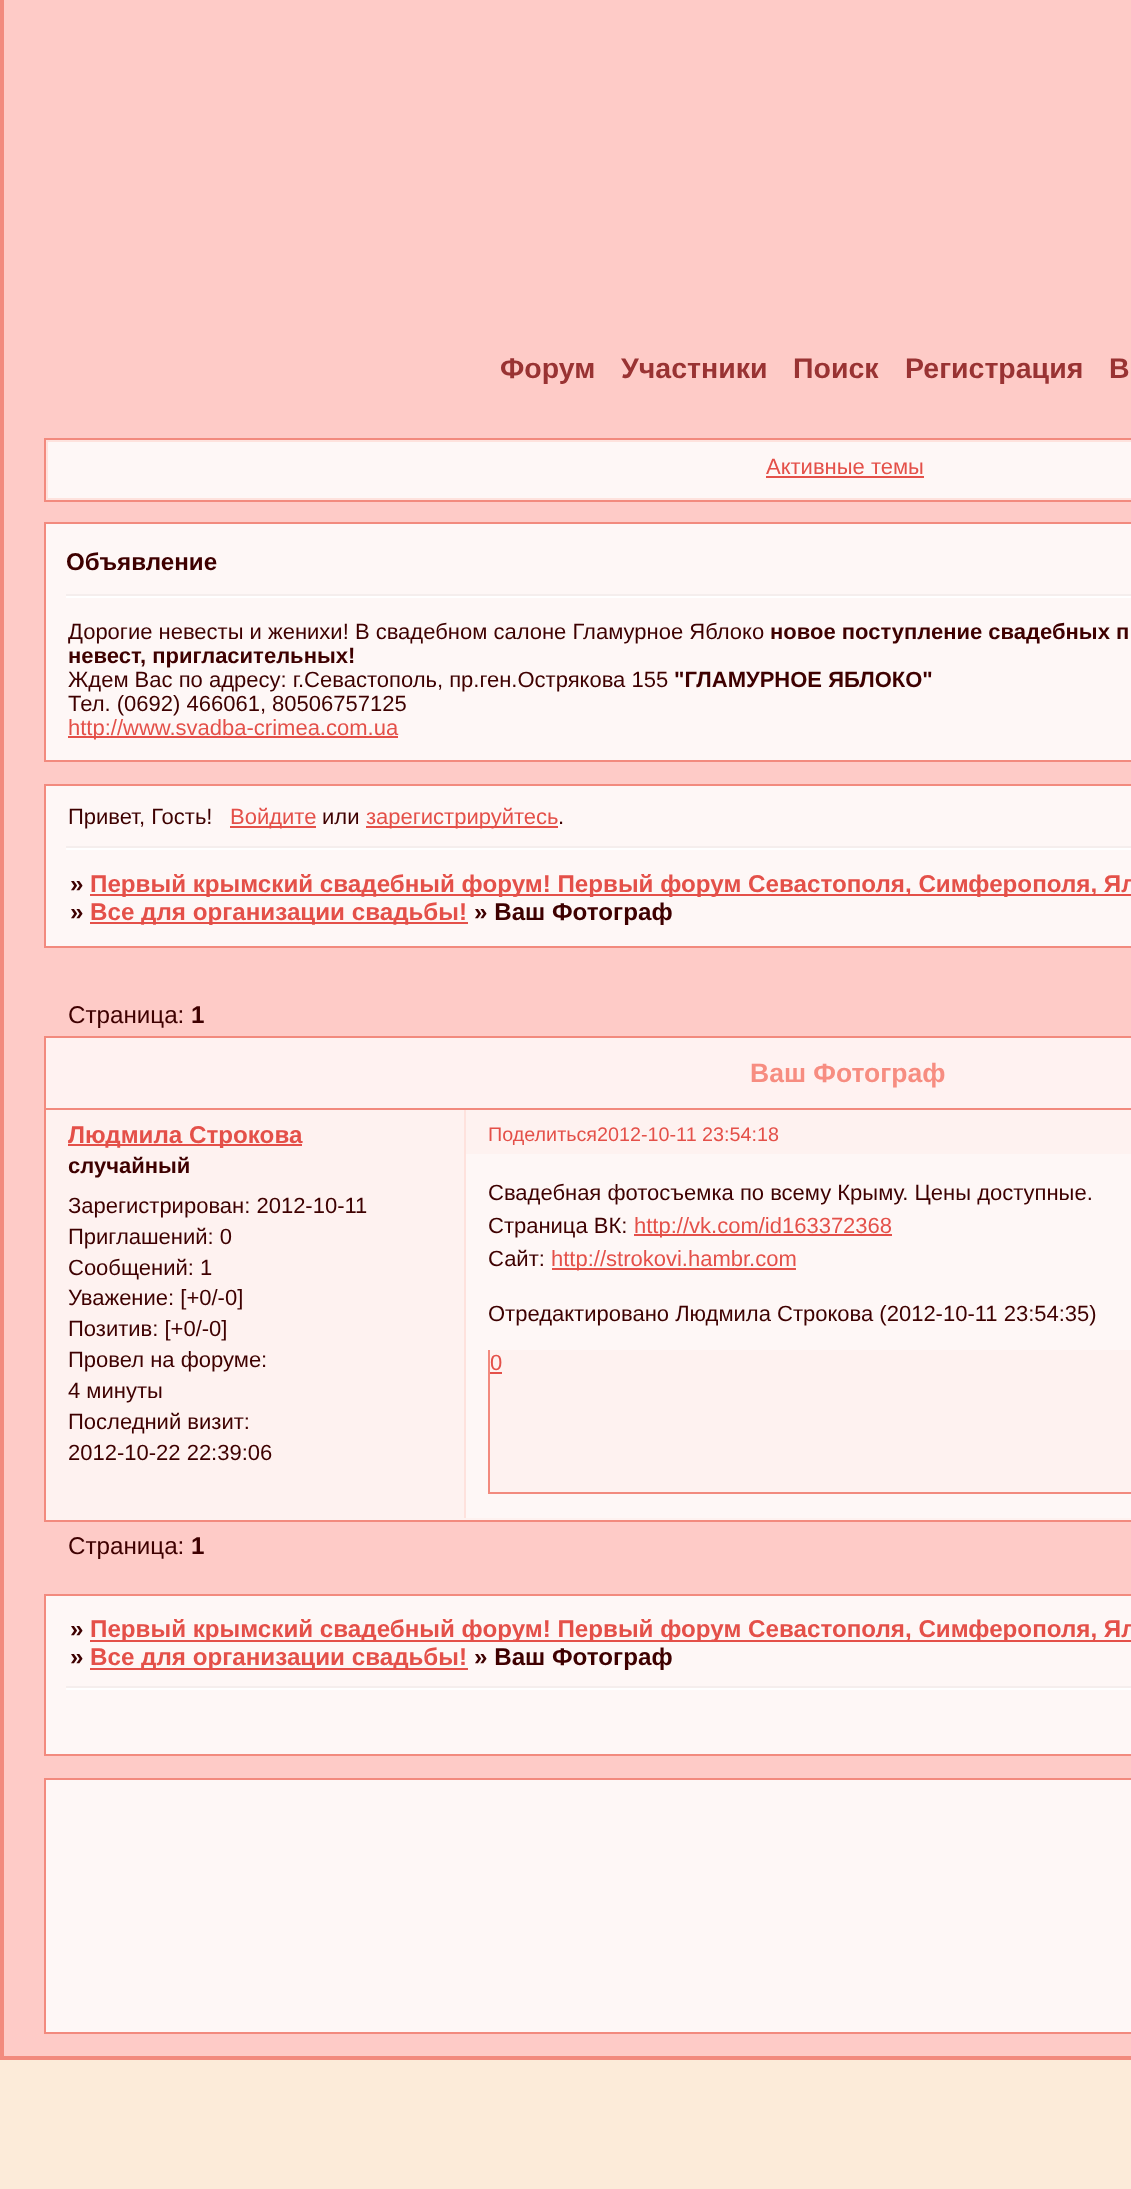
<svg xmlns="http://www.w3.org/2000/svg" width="1131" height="2189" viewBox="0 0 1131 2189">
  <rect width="100%" height="100%" fill="#fcebd9"/>
  <rect x="4" y="0" width="1127" height="2056" fill="#fecbc7"/>
  <rect x="0" y="2056" width="1131" height="4" fill="#f28a7e"/>
  <rect x="0" y="0" width="4" height="2060" fill="#f28a7e"/>
  <text x="500" y="378" font-family="Liberation Sans" font-size="28.5" font-weight="bold" fill="#993333">Форум</text>
  <text x="621" y="378" font-family="Liberation Sans" font-size="28.5" font-weight="bold" fill="#993333">Участники</text>
  <text x="793" y="378" font-family="Liberation Sans" font-size="28.5" font-weight="bold" fill="#993333">Поиск</text>
  <text x="905" y="378" font-family="Liberation Sans" font-size="28.5" font-weight="bold" fill="#993333">Регистрация</text>
  <text x="1109" y="378" font-family="Liberation Sans" font-size="28.5" font-weight="bold" fill="#993333">В</text>
  <rect x="45" y="439" width="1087" height="62" fill="none" stroke="#f28a7e" stroke-width="2"/>
  <rect x="47" y="441" width="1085" height="58" fill="#fef7f6" stroke="#fee2dd" stroke-width="2"/>
  <text x="766" y="474" font-family="Liberation Sans" font-size="22" fill="#e45049">Активные темы</text>
  <rect x="766" y="476" width="158" height="2" fill="#e45049"/>
  <rect x="45" y="523" width="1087" height="238" fill="#fef7f6" stroke="#f28a7e" stroke-width="2"/>
  <rect x="66" y="596" width="1065" height="2" fill="#ffffff"/>
  <rect x="66" y="594" width="1065" height="2" fill="#f5eeed"/>
  <text x="66" y="570" font-family="Liberation Sans" font-size="24.2" font-weight="bold" fill="#3e0000">Объявление</text>
  <text x="68" y="639" font-family="Liberation Sans" font-size="22" fill="#3e0000">Дорогие невесты и женихи! В свадебном салоне Гламурное Яблоко</text>
  <text x="770" y="639" font-family="Liberation Sans" font-size="22" font-weight="bold" fill="#3e0000">новое поступление свадебных п</text>
  <text x="68" y="663" font-family="Liberation Sans" font-size="22" font-weight="bold" fill="#3e0000">невест, пригласительных!</text>
  <text x="68" y="687" font-family="Liberation Sans" font-size="22" fill="#3e0000">Ждем Вас по адресу: г.Севастополь, пр.ген.Острякова 155</text>
  <text x="674" y="687" font-family="Liberation Sans" font-size="22" font-weight="bold" fill="#3e0000">"ГЛАМУРНОЕ ЯБЛОКО"</text>
  <text x="68" y="711" font-family="Liberation Sans" font-size="22" fill="#3e0000">Тел. (0692) 466061, 80506757125</text>
  <rect x="68" y="736" width="330" height="2" fill="#e45049"/>
  <text x="68" y="735" font-family="Liberation Sans" font-size="22" fill="#e45049">http://www.svadba-crimea.com.ua</text>
  <rect x="46" y="786" width="1085" height="160" fill="#fef7f6"/>
  <rect x="44" y="784" width="1087" height="2" fill="#f28a7e"/>
  <rect x="44" y="784" width="2" height="66" fill="#f28a7e"/>
  <text x="68" y="824" font-family="Liberation Sans" font-size="22" fill="#3e0000">Привет, Гость!</text>
  <rect x="230" y="826" width="86" height="2" fill="#e45049"/>
  <text x="230" y="824" font-family="Liberation Sans" font-size="22" fill="#e45049">Войдите</text>
  <text x="322" y="824" font-family="Liberation Sans" font-size="22" fill="#3e0000">или</text>
  <rect x="366" y="826" width="192" height="2" fill="#e45049"/>
  <text x="366" y="824" font-family="Liberation Sans" font-size="22" fill="#e45049">зарегистрируйтесь</text>
  <text x="558" y="824" font-family="Liberation Sans" font-size="22" fill="#3e0000">.</text>
  <rect x="66" y="846" width="1065" height="2" fill="#f5eeed"/>
  <rect x="66" y="848" width="1065" height="2" fill="#ffffff"/>
  <rect x="44" y="946" width="1087" height="2" fill="#f28a7e"/>
  <rect x="44" y="846" width="2" height="102" fill="#f28a7e"/>
  <text x="70" y="892" font-family="Liberation Sans" font-size="24.2" font-weight="bold" fill="#3e0000">»</text>
  <rect x="90" y="894" width="1041" height="2" fill="#e45049"/>
  <text x="90" y="892" font-family="Liberation Sans" font-size="24.2" font-weight="bold" fill="#e45049">Первый крымский свадебный форум! Первый форум Севастополя, Симферополя, Ял</text>
  <text x="70" y="920" font-family="Liberation Sans" font-size="24.2" font-weight="bold" fill="#3e0000">»</text>
  <rect x="90" y="922" width="378" height="2" fill="#e45049"/>
  <text x="90" y="920" font-family="Liberation Sans" font-size="24.2" font-weight="bold" fill="#e45049">Все для организации свадьбы!</text>
  <text x="474" y="920" font-family="Liberation Sans" font-size="24.2" font-weight="bold" fill="#3e0000">» Ваш Фотограф</text>
  <text x="68" y="1023" font-family="Liberation Sans" font-size="24.2" fill="#3e0000">Страница:</text>
  <text x="191" y="1023" font-family="Liberation Sans" font-size="24.2" font-weight="bold" fill="#3e0000">1</text>
  <rect x="46" y="1038" width="1085" height="70" fill="#fff2f1"/>
  <rect x="44" y="1036" width="1087" height="2" fill="#f28a7e"/>
  <rect x="44" y="1036" width="2" height="72" fill="#f28a7e"/>
  <text x="750" y="1082" font-family="Liberation Sans" font-size="26.5" font-weight="bold" fill="#f78d81">Ваш Фотограф</text>
  <rect x="46" y="1110" width="1085" height="44" fill="#fef2f0"/>
  <rect x="464" y="1110" width="2" height="46" fill="#fee2dd"/>
  <rect x="46" y="1154" width="1085" height="366" fill="#fef2f0"/>
  <rect x="44" y="1520" width="1087" height="2" fill="#f28a7e"/>
  <rect x="44" y="1108" width="1087" height="2" fill="#f28a7e"/>
  <rect x="44" y="1108" width="2" height="48" fill="#f28a7e"/>
  <rect x="44" y="1154" width="2" height="368" fill="#f28a7e"/>
  <rect x="68" y="1144" width="234" height="2" fill="#e45049"/>
  <text x="68" y="1143" font-family="Liberation Sans" font-size="24.2" font-weight="bold" fill="#e45049">Людмила Строкова</text>
  <text x="68" y="1173" font-family="Liberation Sans" font-size="22" font-weight="bold" fill="#3e0000">случайный</text>
  <text x="68" y="1213" font-family="Liberation Sans" font-size="22" fill="#3e0000">Зарегистрирован: 2012-10-11</text>
  <text x="68" y="1244" font-family="Liberation Sans" font-size="22" fill="#3e0000">Приглашений: 0</text>
  <text x="68" y="1275" font-family="Liberation Sans" font-size="22" fill="#3e0000">Сообщений: 1</text>
  <text x="68" y="1305" font-family="Liberation Sans" font-size="22" fill="#3e0000">Уважение: [+0/-0]</text>
  <text x="68" y="1336" font-family="Liberation Sans" font-size="22" fill="#3e0000">Позитив: [+0/-0]</text>
  <text x="68" y="1367" font-family="Liberation Sans" font-size="22" fill="#3e0000">Провел на форуме:</text>
  <text x="68" y="1398" font-family="Liberation Sans" font-size="22" fill="#3e0000">4 минуты</text>
  <text x="68" y="1429" font-family="Liberation Sans" font-size="22" fill="#3e0000">Последний визит:</text>
  <text x="68" y="1460" font-family="Liberation Sans" font-size="22" fill="#3e0000">2012-10-22 22:39:06</text>
  <rect x="466" y="1154" width="665" height="364" fill="#fef7f6"/>
  <rect x="464" y="1154" width="2" height="364" fill="#fee2dd"/>
  <text x="488" y="1200" font-family="Liberation Sans" font-size="22" fill="#3e0000">Свадебная фотосъемка по всему Крыму. Цены доступные.</text>
  <text x="488" y="1233" font-family="Liberation Sans" font-size="22" fill="#3e0000">Страница ВК:</text>
  <rect x="634" y="1234" width="258" height="2" fill="#e45049"/>
  <text x="634" y="1233" font-family="Liberation Sans" font-size="22" fill="#e45049">http://vk.com/id163372368</text>
  <text x="488" y="1266" font-family="Liberation Sans" font-size="22" fill="#3e0000">Сайт:</text>
  <rect x="552" y="1268" width="244" height="2" fill="#e45049"/>
  <text x="551" y="1266" font-family="Liberation Sans" font-size="22" fill="#e45049">http://strokovi.hambr.com</text>
  <text x="488" y="1321" font-family="Liberation Sans" font-size="22" fill="#3e0000">Отредактировано Людмила Строкова (2012-10-11 23:54:35)</text>
  <rect x="490" y="1350" width="641" height="142" fill="#fef2f0"/>
  <rect x="488" y="1492" width="643" height="2" fill="#f28a7e"/>
  <rect x="488" y="1350" width="2" height="144" fill="#f28a7e"/>
  <text x="490" y="1370" font-family="Liberation Sans" font-size="22" fill="#e45049">0</text>
  <rect x="490" y="1372" width="12" height="2" fill="#e45049"/>
  <text x="488" y="1141" font-family="Liberation Sans" font-size="19.75" fill="#e45049">Поделиться2012-10-11 23:54:18</text>
  <text x="68" y="1554" font-family="Liberation Sans" font-size="24.2" fill="#3e0000">Страница:</text>
  <text x="191" y="1554" font-family="Liberation Sans" font-size="24.2" font-weight="bold" fill="#3e0000">1</text>
  <rect x="46" y="1596" width="1085" height="158" fill="#fef7f6"/>
  <rect x="44" y="1754" width="1087" height="2" fill="#f28a7e"/>
  <rect x="44" y="1686" width="2" height="70" fill="#f28a7e"/>
  <rect x="44" y="1594" width="1087" height="2" fill="#f28a7e"/>
  <rect x="44" y="1594" width="2" height="96" fill="#f28a7e"/>
  <text x="70" y="1637" font-family="Liberation Sans" font-size="24.2" font-weight="bold" fill="#3e0000">»</text>
  <rect x="90" y="1640" width="1041" height="2" fill="#e45049"/>
  <text x="90" y="1637" font-family="Liberation Sans" font-size="24.2" font-weight="bold" fill="#e45049">Первый крымский свадебный форум! Первый форум Севастополя, Симферополя, Ял</text>
  <text x="70" y="1665" font-family="Liberation Sans" font-size="24.2" font-weight="bold" fill="#3e0000">»</text>
  <rect x="90" y="1668" width="378" height="2" fill="#e45049"/>
  <text x="90" y="1665" font-family="Liberation Sans" font-size="24.2" font-weight="bold" fill="#e45049">Все для организации свадьбы!</text>
  <text x="474" y="1665" font-family="Liberation Sans" font-size="24.2" font-weight="bold" fill="#3e0000">» Ваш Фотограф</text>
  <rect x="66" y="1686" width="1065" height="2" fill="#f5eeed"/>
  <rect x="66" y="1688" width="1065" height="2" fill="#ffffff"/>
  <rect x="45" y="1779" width="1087" height="254" fill="#fef7f6" stroke="#f28a7e" stroke-width="2"/>
</svg>
